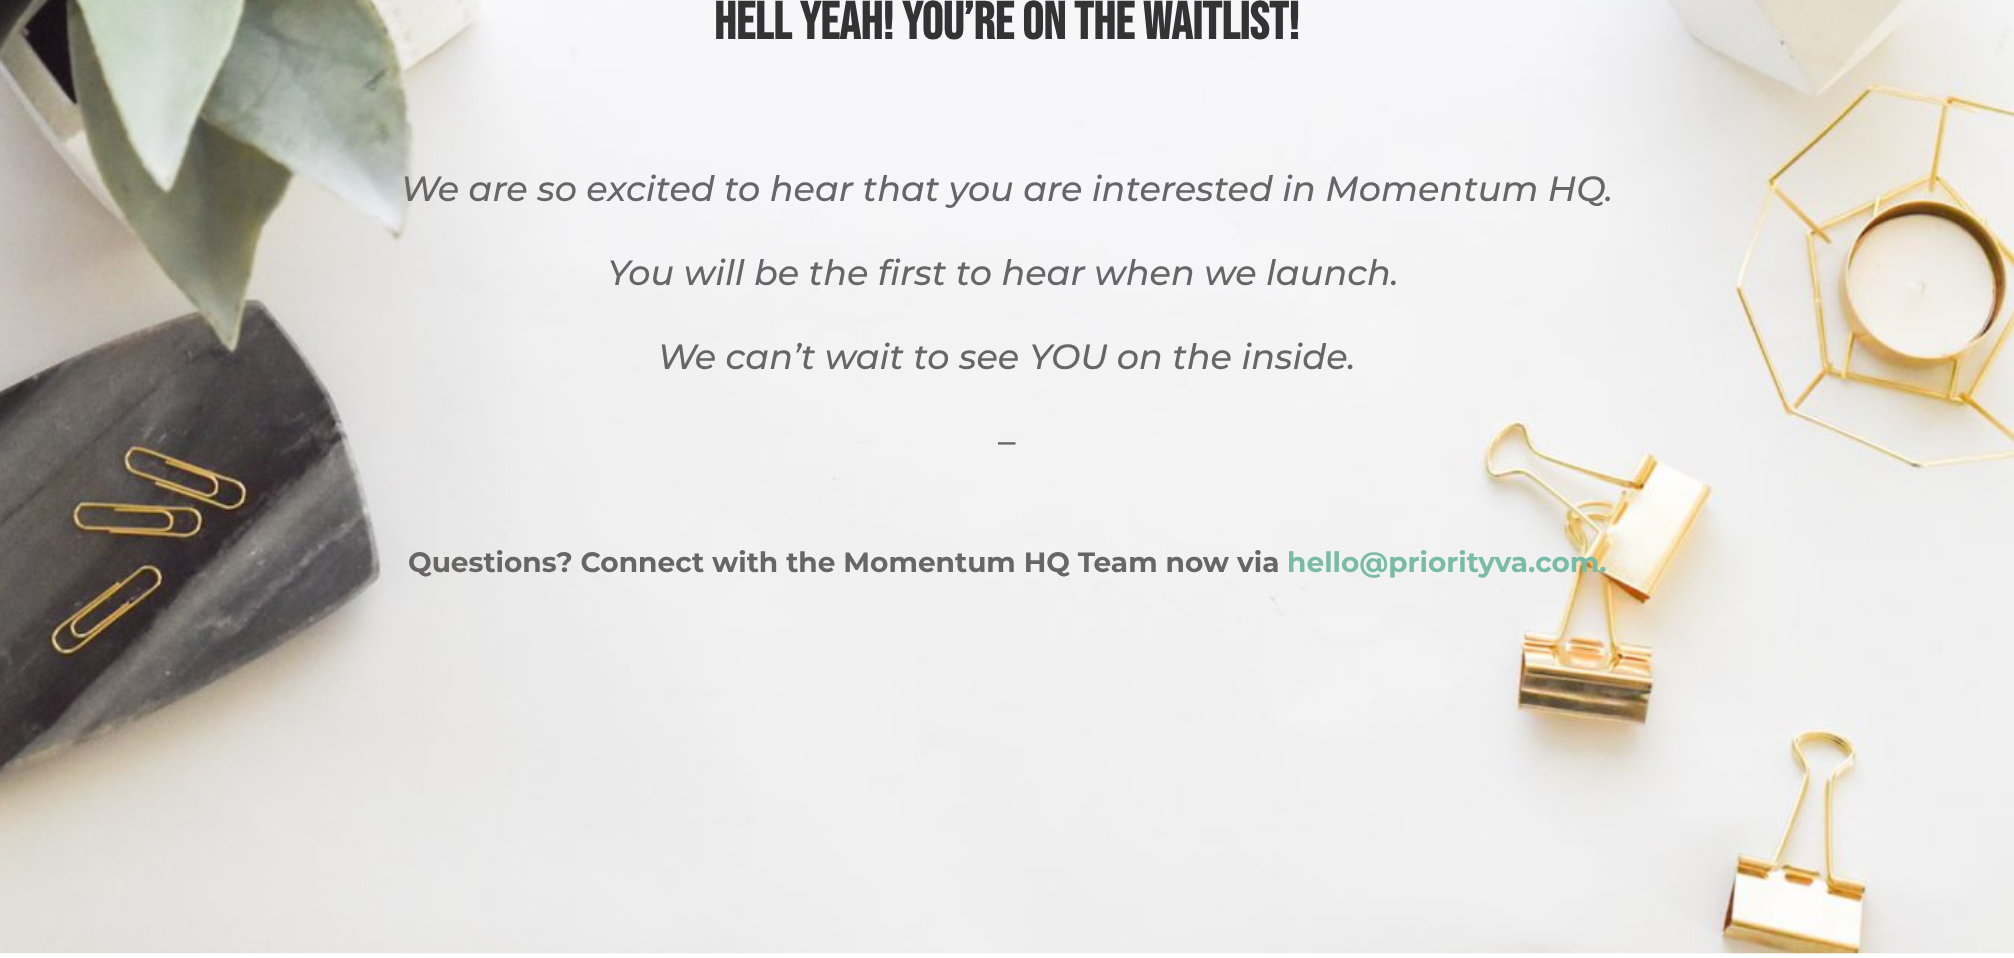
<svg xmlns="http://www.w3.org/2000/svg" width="2014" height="958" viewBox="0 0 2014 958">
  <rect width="100%" height="100%" fill="#ffffff"/>
  <image x="0" y="0" width="2014" height="954" href="img1.png"/>
  <text x="714" y="39" font-family="Bebas Neue" font-size="52.5" font-weight="bold" fill="#333333">Hell Yeah! You’re on the Waitlist!</text>
  <text x="401" y="201" font-family="Montserrat" font-size="35" font-weight="500" font-style="italic" fill="#666666">We are so excited to hear that you are interested in Momentum HQ.</text>
  <text x="607" y="285" font-family="Montserrat" font-size="35" font-weight="500" font-style="italic" fill="#666666">You will be the first to hear when we launch.</text>
  <text x="658" y="369" font-family="Montserrat" font-size="35" font-weight="500" font-style="italic" fill="#666666">We can’t wait to see YOU on the inside.</text>
  <text x="998" y="453" font-family="Montserrat" font-size="35" font-weight="500" fill="#666666">–</text>
  <text x="408" y="572" font-family="Montserrat" font-size="28" font-weight="bold" fill="#666666">Questions? Connect with the Momentum HQ Team now via</text>
  <text x="1287" y="572" font-family="Montserrat" font-size="28" font-weight="bold" fill="#7abba6">hello@priorityva.com.</text>
</svg>
